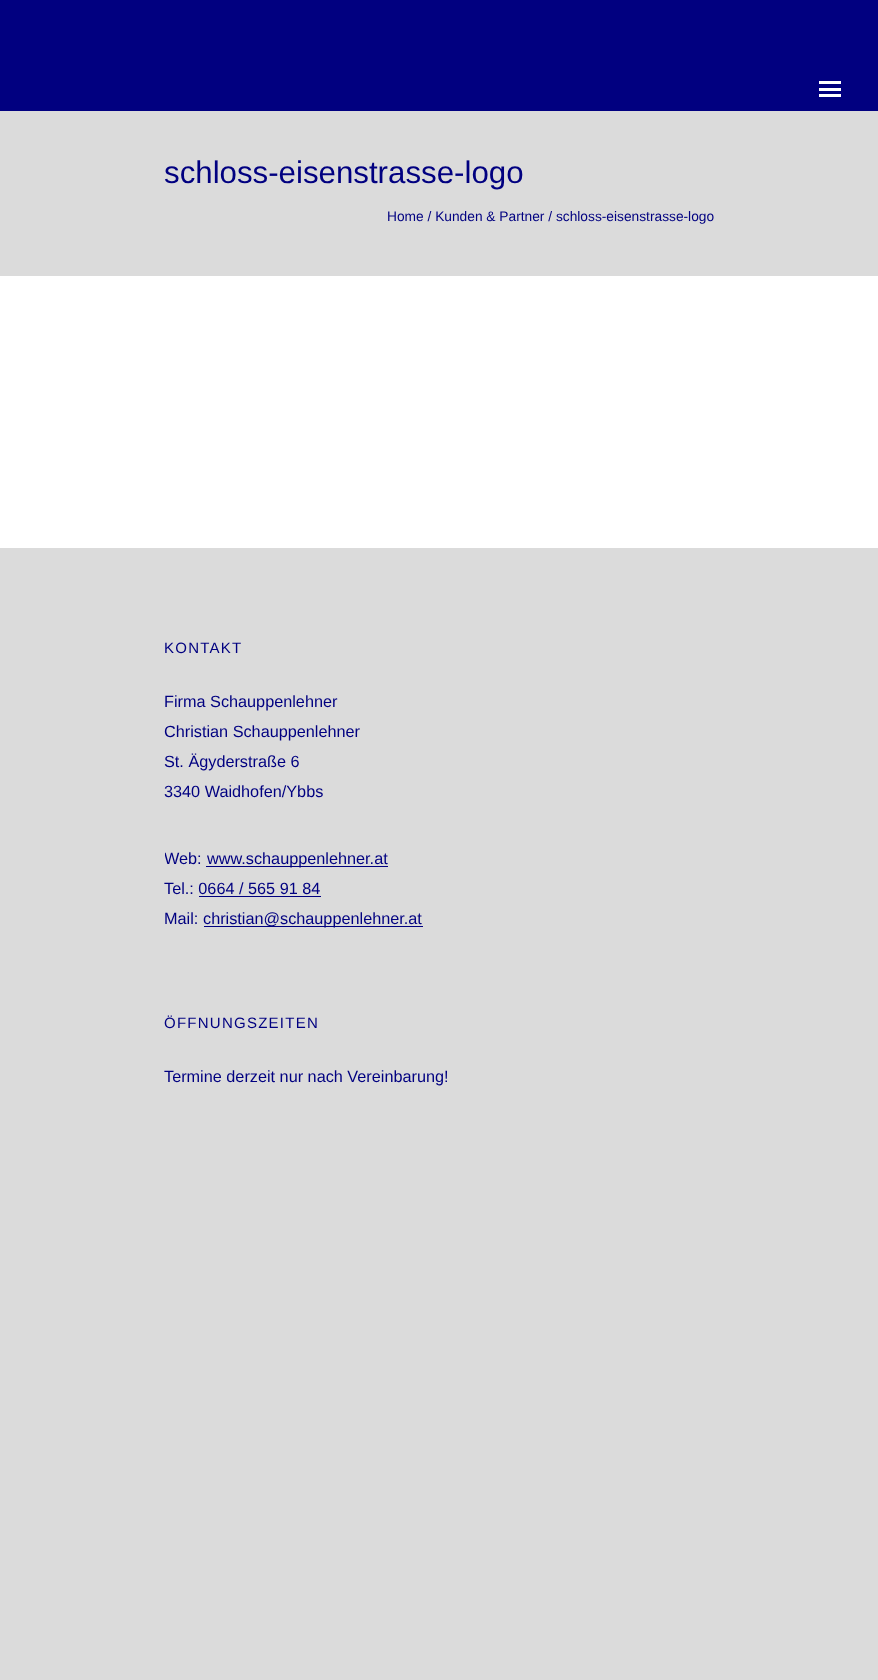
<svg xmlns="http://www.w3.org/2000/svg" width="878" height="1680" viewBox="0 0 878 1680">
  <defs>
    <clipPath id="clip1"><rect x="165" y="635" width="550" height="300"/></clipPath>
  </defs>
  <rect width="100%" height="100%" fill="#ffffff"/>
  <rect x="0" y="0" width="878" height="111" fill="#010080"/>
  <rect x="819" y="81" width="22" height="3" fill="#ffffff"/>
  <rect x="819" y="88" width="22" height="3" fill="#ffffff"/>
  <rect x="819" y="94" width="22" height="3" fill="#ffffff"/>
  <rect x="0" y="111" width="878" height="165" fill="#dbdbdb"/>
  <text x="164" y="183" font-family="Liberation Sans" font-size="31.25" fill="#010080">schloss-eisenstrasse-logo</text>
  <text x="387" y="221" font-family="Liberation Sans" font-size="13.75" fill="#010080">Home / Kunden &amp; Partner / schloss-eisenstrasse-logo</text>
  <rect x="0" y="548" width="878" height="1132" fill="#dbdbdb"/>
  <text x="164" y="653" font-family="Liberation Sans" font-size="15" letter-spacing="1.25" fill="#010080">KONTAKT</text>
  <text x="164" y="707" font-family="Liberation Sans" font-size="16.25" fill="#010080">Firma Schauppenlehner</text>
  <text x="164" y="737" font-family="Liberation Sans" font-size="16.25" fill="#010080">Christian Schauppenlehner</text>
  <text x="164" y="767" font-family="Liberation Sans" font-size="16.25" fill="#010080">St. Ägyderstraße 6</text>
  <text x="164" y="797" font-family="Liberation Sans" font-size="16.25" fill="#010080">3340 Waidhofen/Ybbs</text>
  <g clip-path="url(#clip1)">
    <text x="164" y="864" font-family="Liberation Sans" font-size="16.25" fill="#010080">Web:</text>
  </g>
  <rect x="206" y="866" width="182" height="1" fill="#010080"/>
  <text x="207" y="864" font-family="Liberation Sans" font-size="16.25" fill="#010080">www.schauppenlehner.at</text>
  <text x="164" y="894" font-family="Liberation Sans" font-size="16.25" fill="#010080">Tel.: 0664 / 565 91 84</text>
  <rect x="199" y="896" width="122" height="1" fill="#010080"/>
  <text x="164" y="924" font-family="Liberation Sans" font-size="16.25" fill="#010080">Mail:</text>
  <rect x="204" y="926" width="219" height="1" fill="#010080"/>
  <text x="203" y="924" font-family="Liberation Sans" font-size="16.25" fill="#010080">christian@schauppenlehner.at</text>
  <text x="164" y="1028" font-family="Liberation Sans" font-size="15" letter-spacing="1.25" fill="#010080">ÖFFNUNGSZEITEN</text>
  <text x="164" y="1082" font-family="Liberation Sans" font-size="16.25" fill="#010080">Termine derzeit nur nach Vereinbarung!</text>
</svg>
